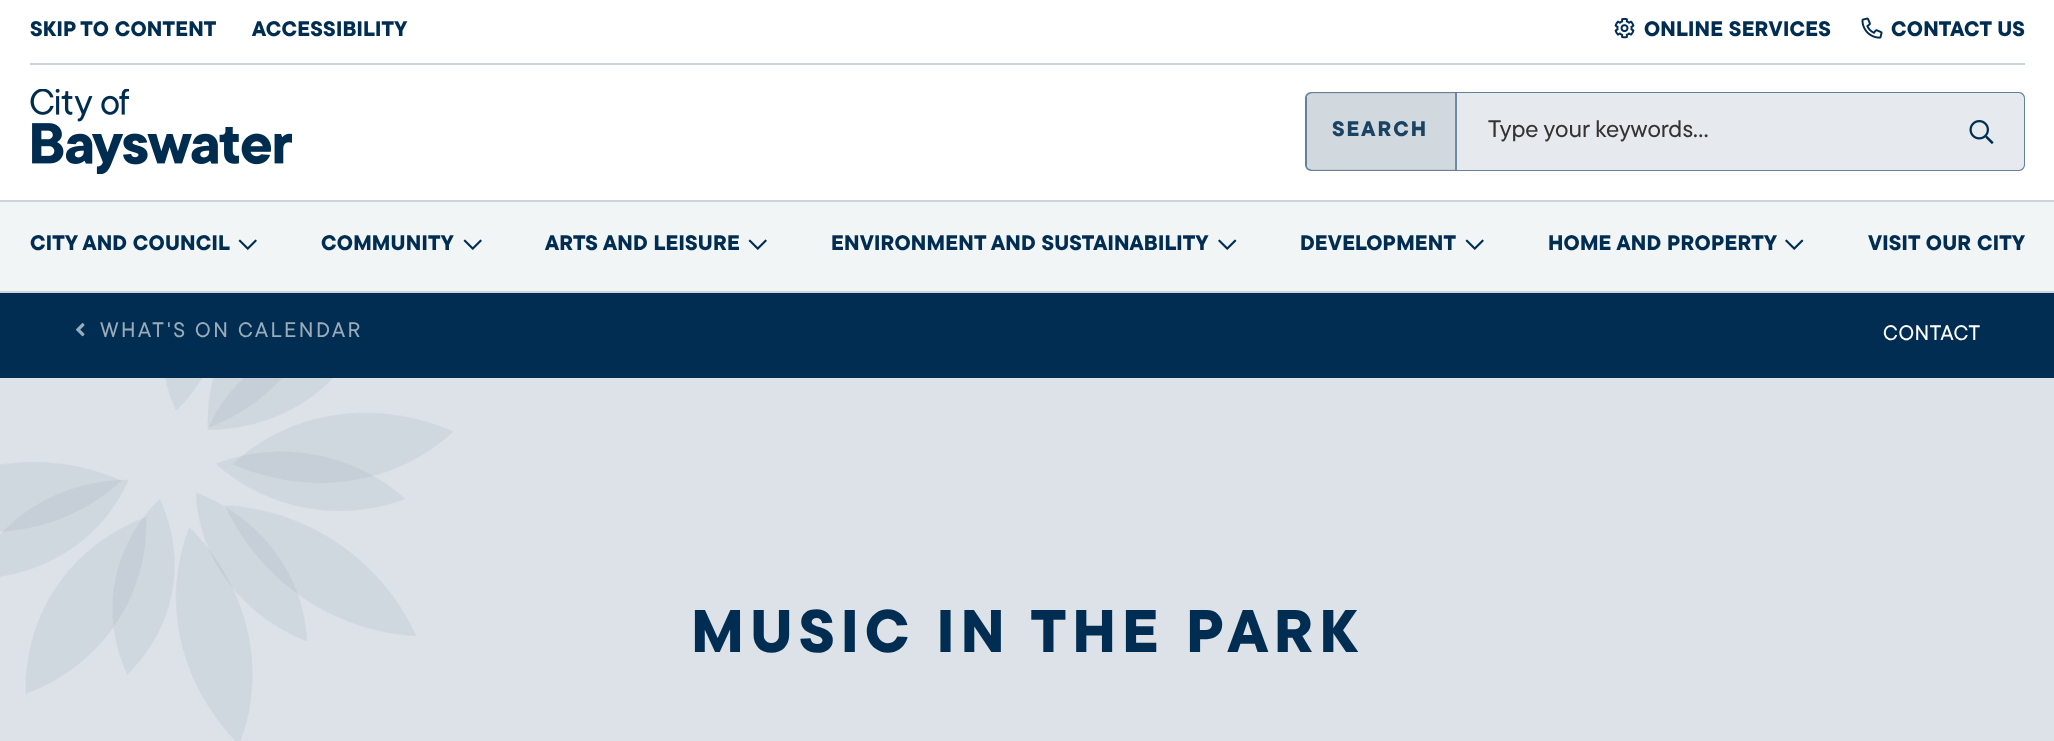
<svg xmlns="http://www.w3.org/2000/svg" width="2054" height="741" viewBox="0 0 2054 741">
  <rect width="100%" height="100%" fill="#ffffff"/>
  <rect x="30" y="63" width="1995" height="2" fill="#ccd5dc"/>
  <text x="30" y="36" font-family="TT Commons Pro" font-size="21" font-weight="800" letter-spacing="0.2" fill="#002d51">SKIP TO CONTENT</text>
  <text x="252" y="36" font-family="TT Commons Pro" font-size="21" font-weight="800" letter-spacing="0.2" fill="#002d51">ACCESSIBILITY</text>
  <image x="1614" y="17" width="21" height="22" href="img1.png"/>
  <text x="1644" y="36" font-family="TT Commons Pro" font-size="21" font-weight="800" letter-spacing="0.2" fill="#002d51">ONLINE SERVICES</text>
  <image x="1861" y="17" width="22" height="22" href="img2.png"/>
  <text x="1891" y="36" font-family="TT Commons Pro" font-size="21" font-weight="800" letter-spacing="0.2" fill="#002d51">CONTACT US</text>
  <image x="30" y="89" width="262" height="85" href="img3.png"/>
  <rect x="1306" y="93" width="718" height="77" rx="5" fill="none" stroke="#668197" stroke-width="2"/>
  <path d="M1313 93H1457V170H1313C1309.5 170 1307 167.5 1307 164V99C1307 95.5 1309.5 93 1313 93Z" fill="#ccd5dc" fill-opacity="0.9"/>
  <rect x="1455" y="93" width="2" height="77" fill="#668197" fill-opacity="0.9"/>
  <text x="1332" y="136" font-family="TT Commons Pro" font-size="21" font-weight="800" letter-spacing="2" fill="#1a4262">SEARCH</text>
  <path d="M1457 93H2018C2021.5 93 2024 95.5 2024 99V164C2024 167.5 2021.5 170 2018 170H1457Z" fill="#e6eaee"/>
  <text x="1488" y="137" font-family="TT Commons Pro" font-size="24" font-weight="500" fill="#333333">Type your keywords...</text>
  <image x="1969" y="120" width="25" height="24" href="img4.png"/>
  <rect x="0" y="202" width="2054" height="89" fill="#f2f5f6"/>
  <rect x="0" y="200" width="2054" height="2" fill="#ccd5dc"/>
  <rect x="0" y="291" width="2054" height="2" fill="#ccd5dc"/>
  <text x="30" y="250" font-family="TT Commons Pro" font-size="21" font-weight="800" letter-spacing="0.2" fill="#002d51">CITY AND COUNCIL</text>
  <image x="238" y="239" width="19" height="11" href="img5.png"/>
  <text x="321" y="250" font-family="TT Commons Pro" font-size="21" font-weight="800" letter-spacing="0.2" fill="#002d51">COMMUNITY</text>
  <image x="463" y="239" width="19" height="11" href="img5.png"/>
  <text x="545" y="250" font-family="TT Commons Pro" font-size="21" font-weight="800" letter-spacing="0.2" fill="#002d51">ARTS AND LEISURE</text>
  <image x="748" y="239" width="19" height="11" href="img5.png"/>
  <text x="831" y="250" font-family="TT Commons Pro" font-size="21" font-weight="800" letter-spacing="0.2" fill="#002d51">ENVIRONMENT AND SUSTAINABILITY</text>
  <image x="1218" y="239" width="19" height="11" href="img6.png"/>
  <text x="1300" y="250" font-family="TT Commons Pro" font-size="21" font-weight="800" letter-spacing="0.2" fill="#002d51">DEVELOPMENT</text>
  <image x="1465" y="239" width="19" height="11" href="img5.png"/>
  <text x="1548" y="250" font-family="TT Commons Pro" font-size="21" font-weight="800" letter-spacing="0.2" fill="#002d51">HOME AND PROPERTY</text>
  <image x="1785" y="239" width="19" height="11" href="img6.png"/>
  <text x="1868" y="250" font-family="TT Commons Pro" font-size="21" font-weight="800" letter-spacing="0.2" fill="#002d51">VISIT OUR CITY</text>
  <rect x="0" y="293" width="2054" height="85" fill="#002d51"/>
  <image x="76" y="323" width="9" height="14" href="img7.png"/>
  <text x="100" y="337" font-family="TT Commons Pro" font-size="21" font-weight="500" letter-spacing="2.5" fill="#99abb9">WHAT'S ON CALENDAR</text>
  <text x="1883" y="340" font-family="TT Commons Pro" font-size="21" font-weight="500" letter-spacing="0.5" fill="#ffffff">CONTACT</text>
  <rect x="0" y="378" width="2054" height="363" fill="#dce2e7"/>
  <image x="0" y="378" width="453" height="363" href="img8.png"/>
  <text x="691" y="652" font-family="TT Commons Pro" font-size="60" font-weight="800" letter-spacing="6" fill="#002d51">MUSIC IN THE PARK</text>
</svg>
